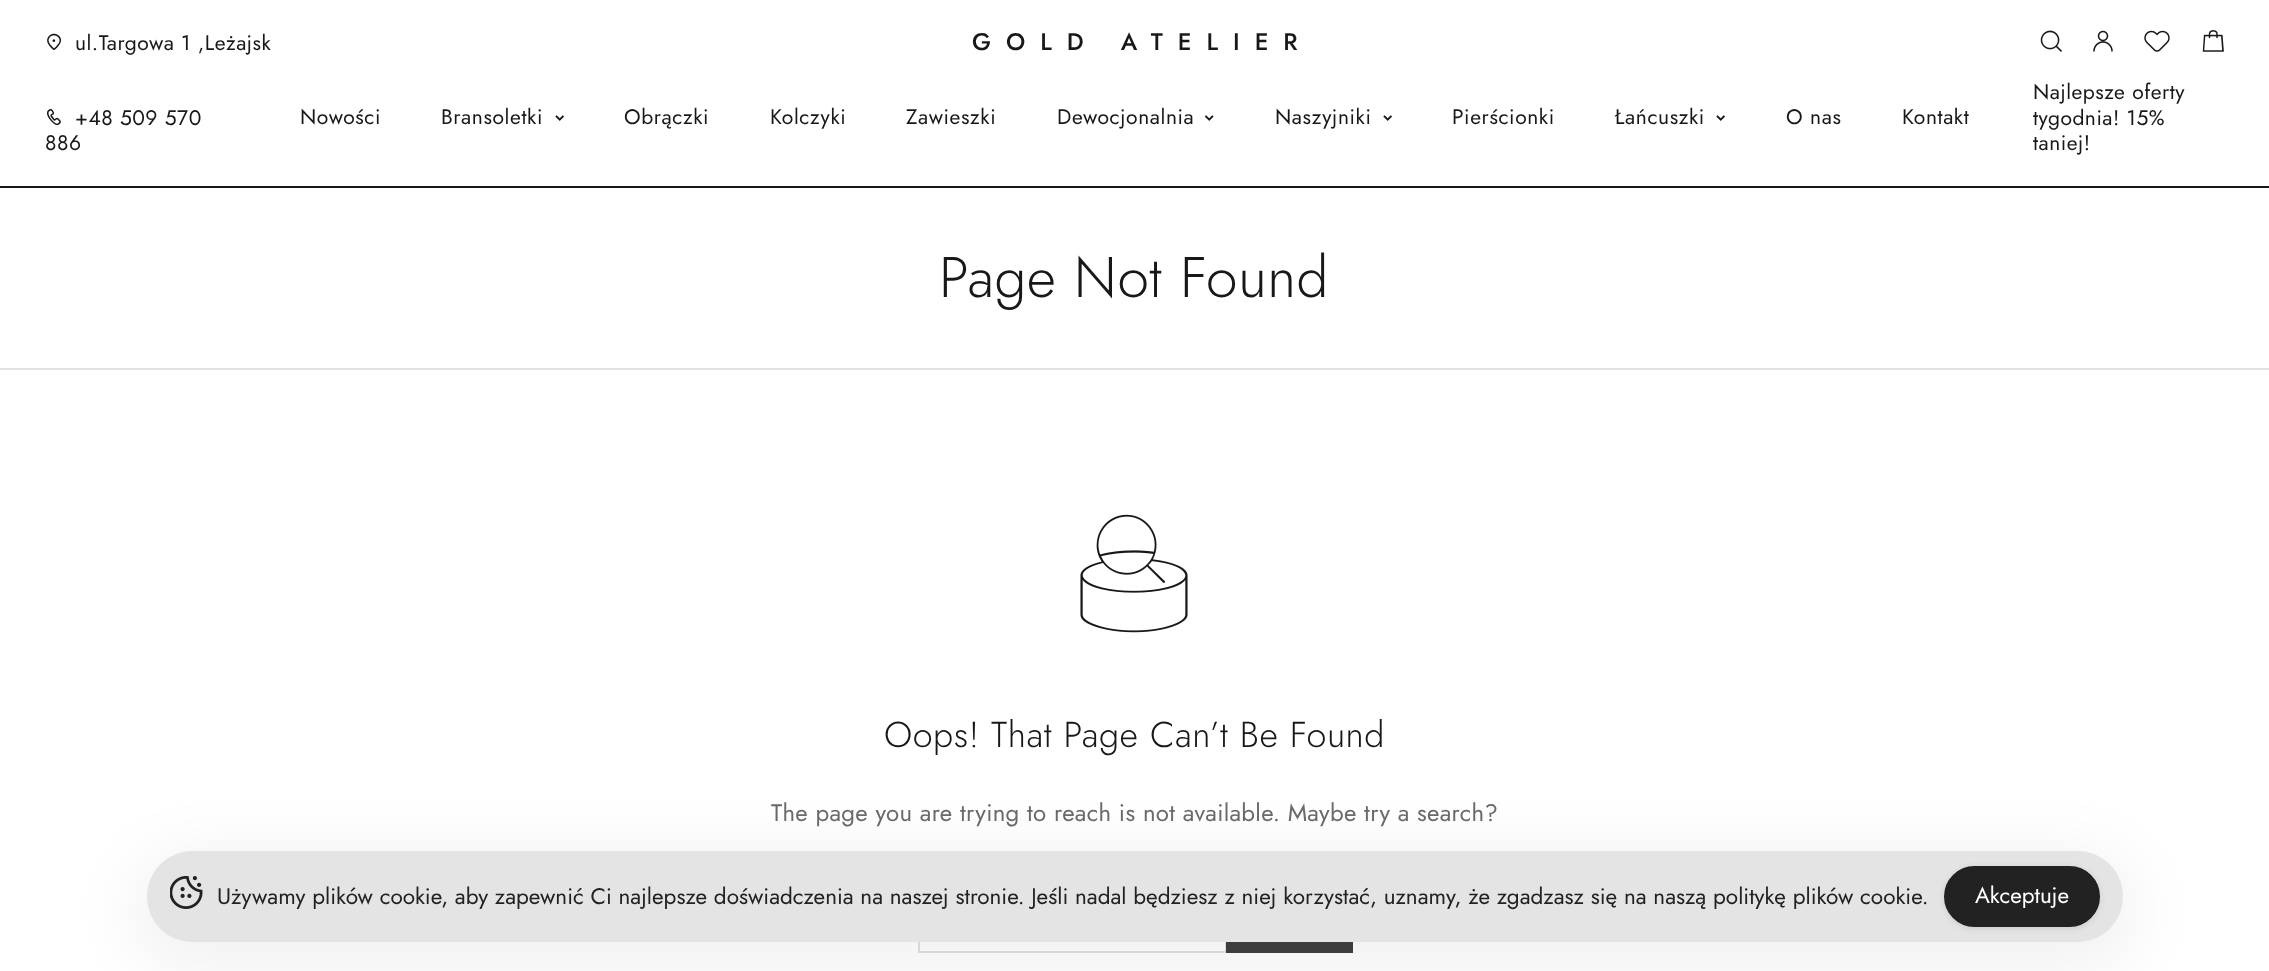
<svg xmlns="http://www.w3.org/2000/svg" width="2269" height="971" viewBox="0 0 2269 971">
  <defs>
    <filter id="blur1" x="-50%" y="-200%" width="200%" height="500%"><feGaussianBlur stdDeviation="30"/></filter>
    <filter id="blur2" x="-50%" y="-200%" width="200%" height="500%"><feGaussianBlur stdDeviation="3"/></filter>
  </defs>
  <rect width="100%" height="100%" fill="#ffffff"/>
  <rect x="0" y="186" width="2269" height="2" fill="#181818"/>
  <image x="47" y="33" width="15" height="17" href="img1.png"/>
  <text x="75" y="50" font-family="Jost" font-size="21" letter-spacing="0.5" fill="#181818">ul.Targowa 1 ,Leżajsk</text>
  <text x="972" y="50" font-family="Jost" font-size="24" font-weight="500" letter-spacing="15" fill="#181818">GOLD ATELIER</text>
  <image x="2040" y="30" width="22" height="22" href="img2.png"/>
  <image x="2093" y="30" width="20" height="22" href="img3.png"/>
  <image x="2144" y="30" width="26" height="22" href="img4.png"/>
  <image x="2202" y="30" width="22" height="22" href="img5.png"/>
  <image x="47" y="108" width="14" height="18" href="img6.png"/>
  <text x="75" y="125" font-family="Jost" font-size="21" letter-spacing="0.5" fill="#181818">+48 509 570</text>
  <text x="45" y="150" font-family="Jost" font-size="21" letter-spacing="0.5" fill="#181818">886</text>
  <text x="300" y="124" font-family="Jost" font-size="21" letter-spacing="0.6" fill="#181818">Nowości</text>
  <text x="441" y="124" font-family="Jost" font-size="21" letter-spacing="0.6" fill="#181818">Bransoletki</text>
  <image x="555" y="115" width="9" height="6" href="img7.png"/>
  <text x="624" y="124" font-family="Jost" font-size="21" letter-spacing="0.6" fill="#181818">Obrączki</text>
  <text x="770" y="124" font-family="Jost" font-size="21" letter-spacing="0.6" fill="#181818">Kolczyki</text>
  <text x="906" y="124" font-family="Jost" font-size="21" letter-spacing="0.6" fill="#181818">Zawieszki</text>
  <text x="1057" y="124" font-family="Jost" font-size="21" letter-spacing="0.6" fill="#181818">Dewocjonalnia</text>
  <image x="1204" y="115" width="10" height="6" href="img8.png"/>
  <text x="1275" y="124" font-family="Jost" font-size="21" letter-spacing="0.6" fill="#181818">Naszyjniki</text>
  <image x="1383" y="115" width="9" height="6" href="img7.png"/>
  <text x="1452" y="124" font-family="Jost" font-size="21" letter-spacing="0.6" fill="#181818">Pierścionki</text>
  <text x="1615" y="124" font-family="Jost" font-size="21" letter-spacing="0.6" fill="#181818">Łańcuszki</text>
  <image x="1716" y="115" width="9" height="6" href="img7.png"/>
  <text x="1786" y="124" font-family="Jost" font-size="21" letter-spacing="0.6" fill="#181818">O nas</text>
  <text x="1902" y="124" font-family="Jost" font-size="21" letter-spacing="0.6" fill="#181818">Kontakt</text>
  <text x="2033" y="99" font-family="Jost" font-size="21" letter-spacing="0.5" fill="#181818">Najlepsze oferty</text>
  <text x="2033" y="125" font-family="Jost" font-size="21" letter-spacing="0.5" fill="#181818">tygodnia! 15%</text>
  <text x="2033" y="150" font-family="Jost" font-size="21" letter-spacing="0.5" fill="#181818">taniej!</text>
  <rect x="0" y="368" width="2269" height="2" fill="#e1e1e1"/>
  <text x="939" y="297" font-family="Jost" font-size="57" font-weight="300" letter-spacing="0.5" fill="#181818">Page Not Found</text>
  <image x="1080" y="514" width="108" height="119" href="img9.png"/>
  <text x="884" y="747" font-family="Jost" font-size="36" font-weight="300" letter-spacing="0.55" fill="#181818">Oops! That Page Can’t Be Found</text>
  <text x="771" y="821" font-family="Jost" font-size="24" letter-spacing="0.3" fill="#6a6a6a">The page you are trying to reach is not available. Maybe try a search?</text>
  <rect x="919" y="879" width="307" height="73" fill="none" stroke="#e1e1e1" stroke-width="2"/>
  <rect x="1226" y="942" width="127" height="11" fill="#404040"/>
  <rect x="132" y="851" width="2006" height="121" rx="60.5" fill="#000000" fill-opacity="0.05" filter="url(#blur1)"/>
  <rect x="147" y="851" width="1976" height="91" rx="45.5" fill="#e4e4e4"/>
  <image x="170" y="876" width="33" height="33" href="img10.png"/>
  <text x="217" y="904" font-family="Jost" font-size="22.5" fill="#222222">Używamy plików cookie, aby zapewnić Ci najlepsze doświadczenia na naszej stronie. Jeśli nadal będziesz z niej korzystać, uznamy, że zgadzasz się na naszą politykę plików cookie.</text>
  <rect x="1944" y="867" width="156" height="62" rx="31" fill="#000000" fill-opacity="0.1" filter="url(#blur2)"/>
  <rect x="1945" y="867" width="154" height="59" rx="29.5" fill="#222222" stroke="#222222" stroke-width="2"/>
  <text x="1975" y="903" font-family="Jost" font-size="22.5" fill="#ffffff">Akceptuje</text>
</svg>
